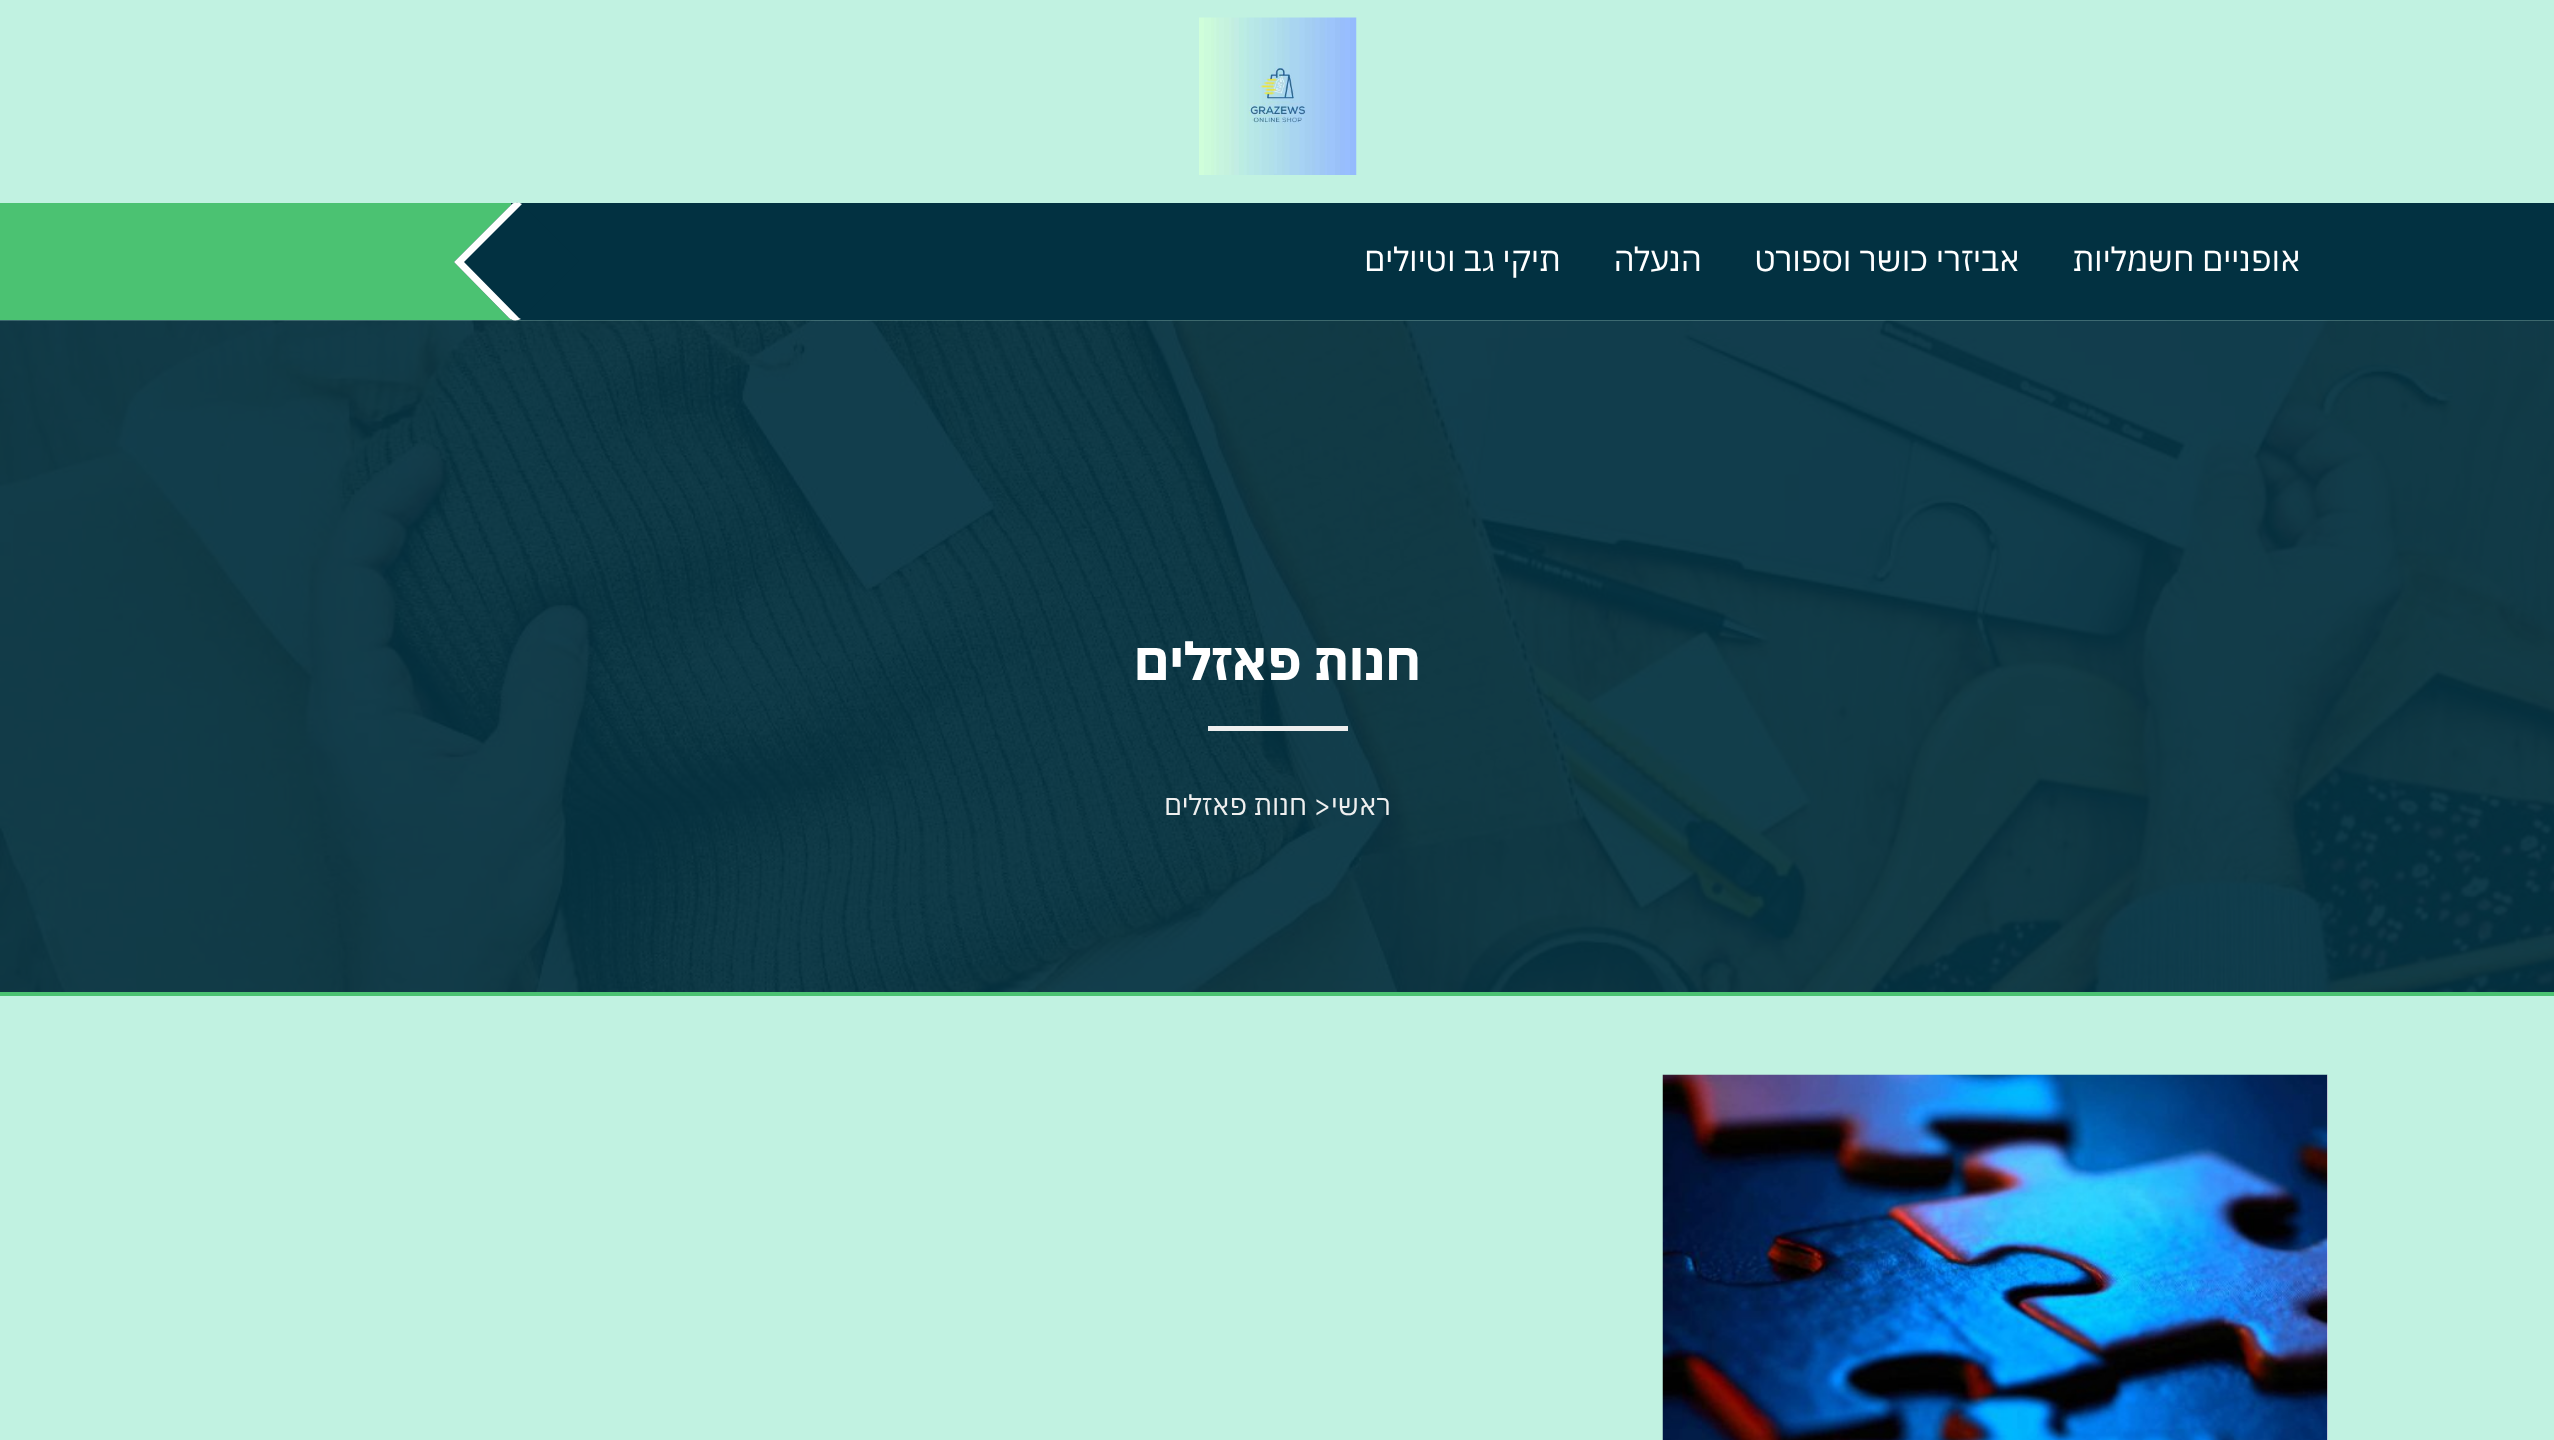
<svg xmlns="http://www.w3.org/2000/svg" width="2554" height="1440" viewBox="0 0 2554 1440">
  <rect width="100%" height="100%" fill="#c1f2e1"/>
  <image x="1199" y="17" width="158" height="158" href="img1.png"/>
  <rect x="511" y="203" width="2043" height="117" fill="#023141"/>
  <text x="2301" y="271" font-family="IBM Plex Sans Hebrew" font-size="33.25" direction="rtl" fill="#ffffff">אופניים חשמליות</text>
  <text x="2020" y="271" font-family="IBM Plex Sans Hebrew" font-size="33.25" direction="rtl" fill="#ffffff">אביזרי כושר וספורט</text>
  <text x="1702" y="271" font-family="IBM Plex Sans Hebrew" font-size="33.25" direction="rtl" fill="#ffffff">הנעלה</text>
  <text x="1561" y="271" font-family="IBM Plex Sans Hebrew" font-size="33.25" direction="rtl" fill="#ffffff">תיקי גב וטיולים</text>
  <rect x="0" y="203" width="511" height="117" fill="#4bc272"/>
  <image x="0" y="320" width="2554" height="672" href="img2.png"/>
  <path d="M523 205L579 261L522 318C518 321 513 321 509 318L454 262L511 205C514 202 520 202 523 205Z" fill="#023141"/>
  <path d="M522 204C518 202 514 202 511 205L454 262L509 318C512 321 517 321 521 319L519 318L464 262Z" fill="#ffffff"/>
  <rect x="0" y="992" width="2554" height="4" fill="#4bc272"/>
  <text x="1421" y="680" font-family="IBM Plex Sans Hebrew" font-size="52.5" font-weight="bold" direction="rtl" fill="#ffffff">חנות פאזלים</text>
  <rect x="1208" y="726" width="140" height="5" fill="#efefef"/>
  <text x="1391" y="815" font-family="IBM Plex Sans Hebrew" font-size="28" direction="rtl" fill="#efefef">ראשי</text>
  <text x="1314" y="815" font-family="IBM Plex Sans Hebrew" font-size="28" fill="#efefef">&gt;</text>
  <text x="1307" y="815" font-family="IBM Plex Sans Hebrew" font-size="28" direction="rtl" fill="#efefef">חנות פאזלים</text>
  <rect x="2327" y="1075" width="1" height="365" fill="#ffffff"/>
  <image x="1662" y="1074" width="666" height="366" href="img3.png"/>
</svg>
